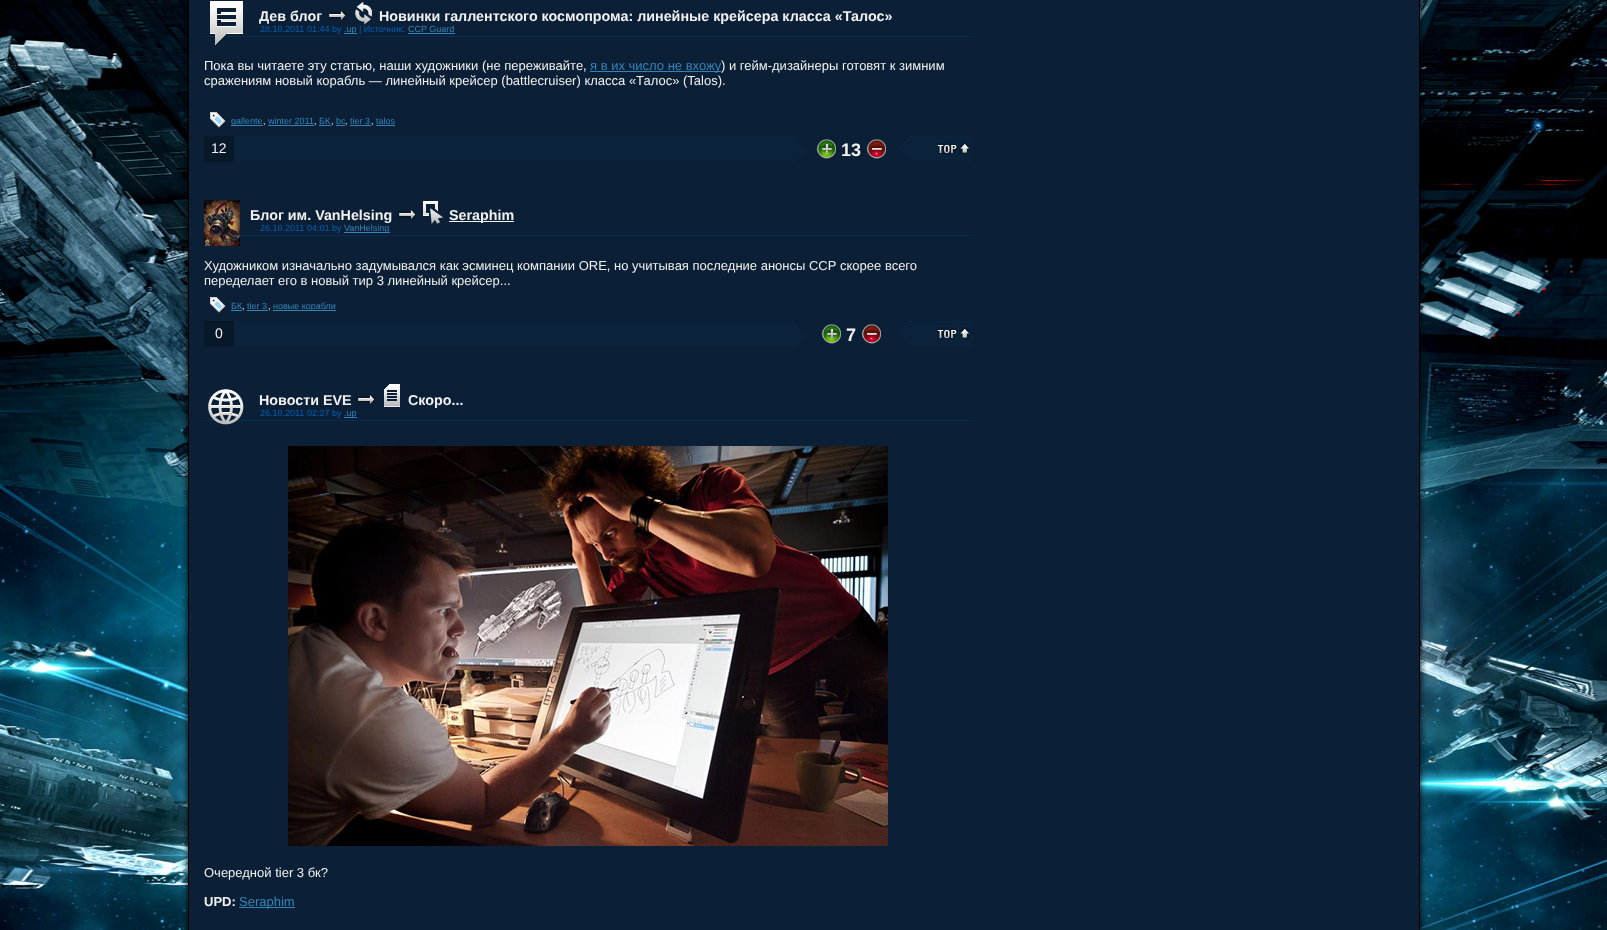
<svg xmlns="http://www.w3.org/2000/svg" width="1607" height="930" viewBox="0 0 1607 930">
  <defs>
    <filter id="blur1" x="-50%" y="-200%" width="200%" height="500%"><feGaussianBlur stdDeviation="3.5"/></filter>
  </defs>
  <rect width="100%" height="100%" fill="#ffffff"/>
  <image x="0" y="0" width="1607" height="930" href="img1.png"/>
  <rect x="188" y="-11" width="1232" height="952" fill="#000000" filter="url(#blur1)"/>
  <rect x="188.5" y="-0.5" width="1231" height="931" fill="#0b2036" stroke="#000000"/>
  <rect x="204" y="36" width="768" height="1" fill="#082c50"/>
  <image x="210" y="1" width="33" height="44" href="img2.png"/>
  <text x="259" y="21" font-family="Liberation Sans" font-size="14.3" font-weight="bold" fill="#f1f1f1">Дев блог</text>
  <image x="327" y="10" width="20" height="11" href="img3.png"/>
  <image x="355" y="2" width="17" height="23" href="img4.png"/>
  <text x="379" y="21" font-family="Liberation Sans" font-size="14.3" font-weight="bold" fill="#f1f1f1">Новинки галлентского космопрома: линейные крейсера класса «Талос»</text>
  <text x="260" y="32" font-family="Liberation Sans" font-size="9" fill="#005fb7">28.10.2011 01:44 by</text>
  <rect x="344" y="33" width="13" height="1" fill="#3485b7"/>
  <text x="344" y="32" font-family="Liberation Sans" font-size="9" fill="#3485b7">.up</text>
  <text x="359" y="32" font-family="Liberation Sans" font-size="9" fill="#005fb7">| Источник:</text>
  <text x="408" y="32" font-family="Liberation Sans" font-size="9" fill="#3485b7">CCP Guard</text>
  <rect x="408" y="33" width="47" height="1" fill="#3485b7"/>
  <text x="204" y="70" font-family="Liberation Sans" font-size="13" fill="#f1f1f1">Пока вы читаете эту статью, наши художники (не переживайте,</text>
  <rect x="590" y="71" width="131" height="1" fill="#3485b7"/>
  <text x="590" y="70" font-family="Liberation Sans" font-size="13" fill="#3485b7">я в их число не вхожу</text>
  <text x="721" y="70" font-family="Liberation Sans" font-size="13" fill="#f1f1f1">) и гейм-дизайнеры готовят к зимним</text>
  <text x="204" y="85" font-family="Liberation Sans" font-size="13" fill="#f1f1f1">сражениям новый корабль — линейный крейсер (battlecruiser) класса «Талос» (Talos).</text>
  <image x="210" y="112" width="16" height="16" href="img5.png"/>
  <rect x="231" y="125" width="32" height="1" fill="#3485b7"/>
  <text x="231" y="124" font-family="Liberation Sans" font-size="9" fill="#3485b7">gallente</text>
  <text x="263" y="124" font-family="Liberation Sans" font-size="9" fill="#f1f1f1">,</text>
  <text x="268" y="124" font-family="Liberation Sans" font-size="9" fill="#3485b7">winter 2011</text>
  <rect x="268" y="125" width="46" height="1" fill="#3485b7"/>
  <text x="314" y="124" font-family="Liberation Sans" font-size="9" fill="#f1f1f1">,</text>
  <text x="319" y="124" font-family="Liberation Sans" font-size="9" fill="#3485b7">БК</text>
  <rect x="319" y="125" width="12" height="1" fill="#3485b7"/>
  <text x="331" y="124" font-family="Liberation Sans" font-size="9" fill="#f1f1f1">,</text>
  <text x="336" y="124" font-family="Liberation Sans" font-size="9" fill="#3485b7">bc</text>
  <rect x="336" y="125" width="9" height="1" fill="#3485b7"/>
  <text x="345" y="124" font-family="Liberation Sans" font-size="9" fill="#f1f1f1">,</text>
  <text x="350" y="124" font-family="Liberation Sans" font-size="9" fill="#3485b7">tier 3</text>
  <rect x="350" y="125" width="21" height="1" fill="#3485b7"/>
  <text x="371" y="124" font-family="Liberation Sans" font-size="9" fill="#f1f1f1">,</text>
  <text x="376" y="124" font-family="Liberation Sans" font-size="9" fill="#3485b7">talos</text>
  <rect x="376" y="125" width="19" height="1" fill="#3485b7"/>
  <rect x="234" y="136" width="558" height="26" fill="#0a233b"/>
  <rect x="204" y="136" width="30" height="26" fill="#071929"/>
  <text x="211" y="153" font-family="Liberation Sans" font-size="14" fill="#f1f1f1">12</text>
  <image x="792" y="136" width="14" height="26" href="img6.png"/>
  <image x="817" y="139" width="19" height="20" href="img7.png"/>
  <text x="841" y="156" font-family="Liberation Sans" font-size="18" font-weight="bold" fill="#f1f1f1">13</text>
  <image x="867" y="139" width="19" height="20" href="img8.png"/>
  <rect x="912" y="136" width="60" height="26" fill="#0a233b"/>
  <image x="898" y="136" width="14" height="26" href="img9.png"/>
  <image x="937" y="142" width="33" height="13" href="img10.png"/>
  <rect x="240" y="235" width="732" height="1" fill="#082c50"/>
  <image x="204" y="200" width="36" height="46" href="img11.png"/>
  <text x="250" y="220" font-family="Liberation Sans" font-size="14.3" font-weight="bold" fill="#f1f1f1">Блог им. VanHelsing</text>
  <image x="397" y="209" width="20" height="11" href="img3.png"/>
  <image x="423" y="201" width="20" height="23" href="img12.png"/>
  <rect x="449" y="221" width="65" height="1" fill="#f1f1f1"/>
  <text x="449" y="220" font-family="Liberation Sans" font-size="14.3" font-weight="bold" fill="#f1f1f1">Seraphim</text>
  <text x="260" y="231" font-family="Liberation Sans" font-size="9" fill="#005fb7">26.10.2011 04:01 by</text>
  <rect x="344" y="232" width="46" height="1" fill="#3485b7"/>
  <text x="344" y="231" font-family="Liberation Sans" font-size="9" fill="#3485b7">VanHelsing</text>
  <text x="204" y="270" font-family="Liberation Sans" font-size="13" fill="#f1f1f1">Художником изначально задумывался как эсминец компании ORE, но учитывая последние анонсы ССР скорее всего</text>
  <text x="204" y="285" font-family="Liberation Sans" font-size="13" fill="#f1f1f1">переделает его в новый тир 3 линейный крейсер...</text>
  <image x="210" y="297" width="16" height="16" href="img5.png"/>
  <text x="231" y="309" font-family="Liberation Sans" font-size="9" fill="#3485b7">БК</text>
  <rect x="231" y="310" width="11" height="1" fill="#3485b7"/>
  <text x="242" y="309" font-family="Liberation Sans" font-size="9" fill="#f1f1f1">,</text>
  <text x="247" y="309" font-family="Liberation Sans" font-size="9" fill="#3485b7">tier 3</text>
  <rect x="247" y="310" width="21" height="1" fill="#3485b7"/>
  <text x="268" y="309" font-family="Liberation Sans" font-size="9" fill="#f1f1f1">,</text>
  <rect x="273" y="310" width="63" height="1" fill="#3485b7"/>
  <text x="273" y="309" font-family="Liberation Sans" font-size="9" fill="#3485b7">новые корабли</text>
  <rect x="234" y="321" width="558" height="26" fill="#0a233b"/>
  <rect x="204" y="321" width="30" height="26" fill="#071929"/>
  <text x="215" y="338" font-family="Liberation Sans" font-size="14" fill="#f1f1f1">0</text>
  <image x="792" y="321" width="14" height="26" href="img6.png"/>
  <image x="822" y="324" width="19" height="20" href="img7.png"/>
  <text x="846" y="341" font-family="Liberation Sans" font-size="18" font-weight="bold" fill="#f1f1f1">7</text>
  <image x="862" y="324" width="19" height="20" href="img8.png"/>
  <rect x="912" y="321" width="60" height="26" fill="#0a233b"/>
  <image x="898" y="321" width="14" height="26" href="img9.png"/>
  <image x="937" y="327" width="33" height="13" href="img10.png"/>
  <rect x="204" y="420" width="768" height="1" fill="#082c50"/>
  <image x="208" y="389" width="36" height="36" href="img13.png"/>
  <text x="259" y="405" font-family="Liberation Sans" font-size="14.3" font-weight="bold" fill="#f1f1f1">Новости EVE</text>
  <image x="356" y="394" width="20" height="11" href="img3.png"/>
  <image x="384" y="384" width="16" height="23" href="img14.png"/>
  <text x="408" y="405" font-family="Liberation Sans" font-size="14.3" font-weight="bold" fill="#f1f1f1">Скоро...</text>
  <text x="260" y="416" font-family="Liberation Sans" font-size="9" fill="#005fb7">26.10.2011 02:27 by</text>
  <rect x="344" y="417" width="13" height="1" fill="#3485b7"/>
  <text x="344" y="416" font-family="Liberation Sans" font-size="9" fill="#3485b7">.up</text>
  <image x="288" y="446" width="600" height="400" href="img15.png"/>
  <text x="204" y="877" font-family="Liberation Sans" font-size="13" fill="#f1f1f1">Очередной tier 3 бк?</text>
  <text x="204" y="906" font-family="Liberation Sans" font-size="13" font-weight="bold" fill="#f1f1f1">UPD:</text>
  <rect x="239" y="907" width="56" height="1" fill="#3485b7"/>
  <text x="239" y="906" font-family="Liberation Sans" font-size="13" fill="#3485b7">Seraphim</text>
</svg>
